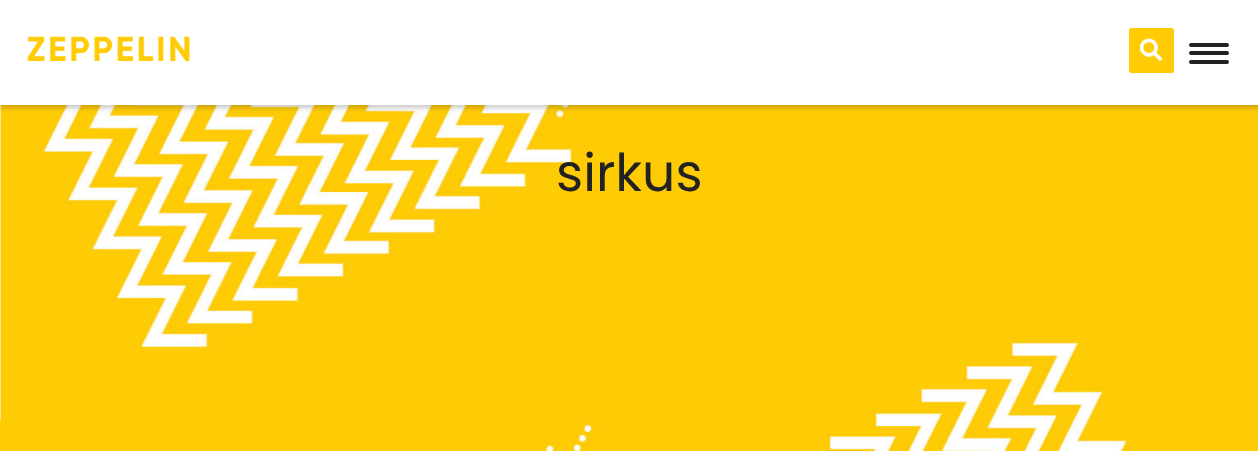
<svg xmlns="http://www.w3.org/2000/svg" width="1258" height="451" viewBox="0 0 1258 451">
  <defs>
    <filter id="blur1" x="-50%" y="-200%" width="200%" height="500%"><feGaussianBlur stdDeviation="2.5"/></filter>
  </defs>
  <rect width="100%" height="100%" fill="#f2f2f2"/>
  <rect x="0" y="420" width="1" height="31" fill="#ffcb05"/>
  <image x="0" y="105" width="1258" height="346" href="img3.png"/>
  <rect x="0" y="3" width="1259" height="105" fill="#000000" fill-opacity="0.2" filter="url(#blur1)"/>
  <rect x="0" y="0" width="1258" height="105" fill="#ffffff"/>
  <image x="27" y="36" width="164" height="25" href="img1.png"/>
  <rect x="1129" y="28" width="45" height="45" rx="2.5" fill="#ffcb05"/>
  <image x="1140" y="38" width="22" height="23" href="img2.png"/>
  <rect x="1189" y="51" width="40" height="4" rx="2" fill="#222222"/>
  <rect x="1189" y="43" width="40" height="4" rx="2" fill="#222222"/>
  <rect x="1189" y="60" width="40" height="4" rx="2" fill="#222222"/>
  <text x="556" y="191" font-family="Poppins" font-size="52" fill="#222222">sirkus</text>
</svg>
